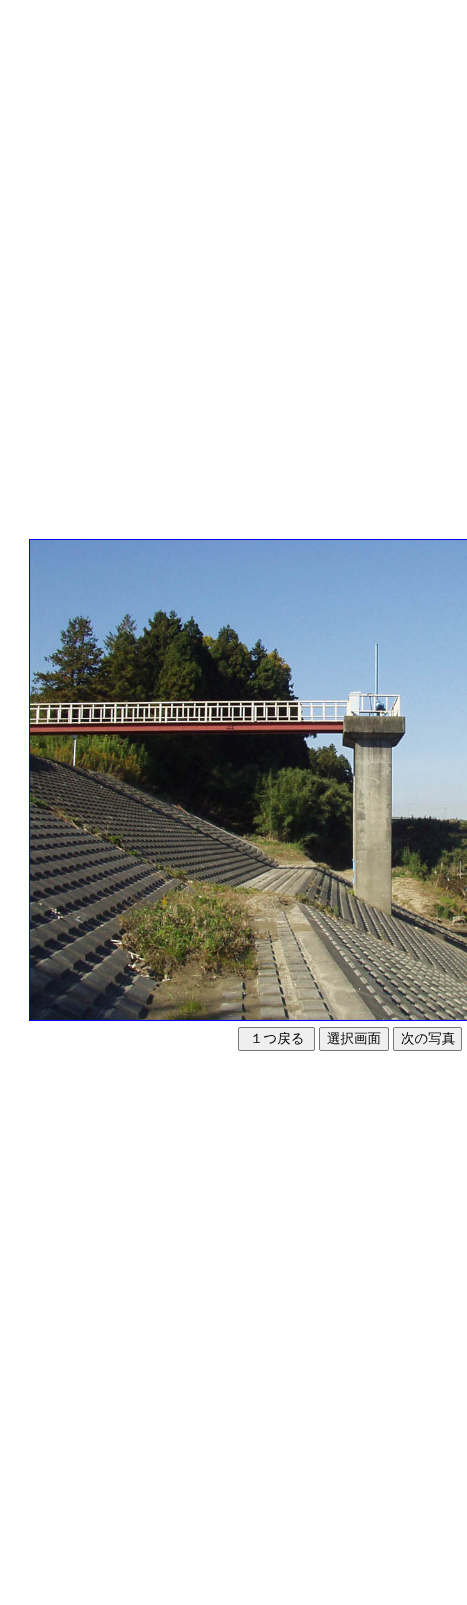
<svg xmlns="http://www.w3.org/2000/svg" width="467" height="1605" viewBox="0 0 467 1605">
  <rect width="100%" height="100%" fill="#ffffff"/>
  <rect x="29.5" y="539.5" width="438" height="481" fill="none" stroke="#0000ff"/>
  <image x="30" y="540" width="437" height="480" href="img1.png"/>
  <rect x="238.5" y="1027.5" width="76" height="23" rx="1.5" fill="#efefef" stroke="#767676"/>
  <text x="250" y="1043" font-family="WenQuanYi Zen Hei" font-size="13.5" font-weight="500" fill="#000000">１つ戻る</text>
  <rect x="319.5" y="1027.5" width="69" height="23" rx="1.5" fill="#efefef" stroke="#767676"/>
  <text x="327" y="1043" font-family="WenQuanYi Zen Hei" font-size="13.5" font-weight="500" fill="#000000">選択画面</text>
  <rect x="393.5" y="1027.5" width="68" height="23" rx="1.5" fill="#efefef" stroke="#767676"/>
  <text x="401" y="1043" font-family="WenQuanYi Zen Hei" font-size="13.5" font-weight="500" fill="#000000">次の写真</text>
</svg>
